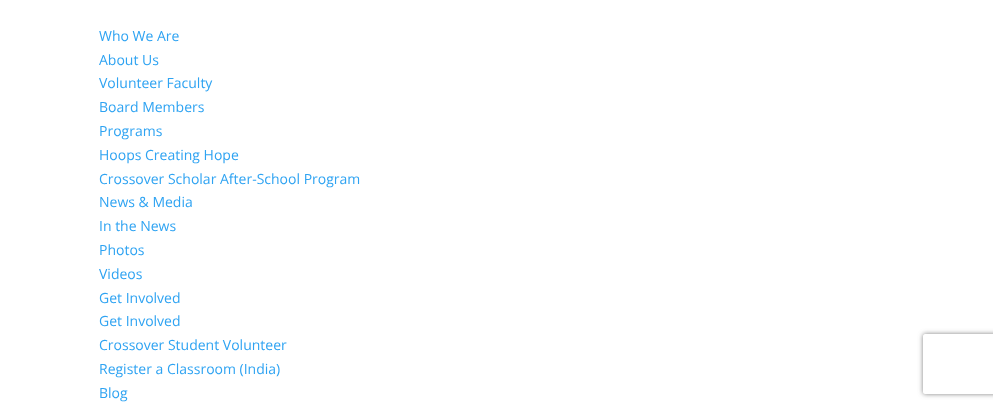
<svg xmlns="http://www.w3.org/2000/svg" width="993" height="408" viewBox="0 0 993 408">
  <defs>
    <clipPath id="clip1"><path d="M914 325H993V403H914ZM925 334H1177C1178 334 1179 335 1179 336V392C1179 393 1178 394 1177 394H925C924 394 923 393 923 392V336C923 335 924 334 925 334Z" clip-rule="evenodd"/></clipPath>
    <filter id="blur1" x="-50%" y="-200%" width="200%" height="500%"><feGaussianBlur stdDeviation="2.5"/></filter>
  </defs>
  <rect width="100%" height="100%" fill="#ffffff"/>
  <text x="99" y="41" font-family="Open Sans" font-size="14" fill="#2ea3f2">Who We Are</text>
  <text x="99" y="65" font-family="Open Sans" font-size="14" fill="#2ea3f2">About Us</text>
  <text x="99" y="88" font-family="Open Sans" font-size="14" fill="#2ea3f2">Volunteer Faculty</text>
  <text x="99" y="112" font-family="Open Sans" font-size="14" fill="#2ea3f2">Board Members</text>
  <text x="99" y="136" font-family="Open Sans" font-size="14" fill="#2ea3f2">Programs</text>
  <text x="99" y="160" font-family="Open Sans" font-size="14" fill="#2ea3f2">Hoops Creating Hope</text>
  <text x="99" y="184" font-family="Open Sans" font-size="14" fill="#2ea3f2">Crossover Scholar After-School Program</text>
  <text x="99" y="207" font-family="Open Sans" font-size="14" fill="#2ea3f2">News &amp; Media</text>
  <text x="99" y="231" font-family="Open Sans" font-size="14" fill="#2ea3f2">In the News</text>
  <text x="99" y="255" font-family="Open Sans" font-size="14" fill="#2ea3f2">Photos</text>
  <text x="99" y="279" font-family="Open Sans" font-size="14" fill="#2ea3f2">Videos</text>
  <text x="99" y="303" font-family="Open Sans" font-size="14" fill="#2ea3f2">Get Involved</text>
  <text x="99" y="326" font-family="Open Sans" font-size="14" fill="#2ea3f2">Get Involved</text>
  <text x="99" y="350" font-family="Open Sans" font-size="14" fill="#2ea3f2">Crossover Student Volunteer</text>
  <text x="99" y="374" font-family="Open Sans" font-size="14" fill="#2ea3f2">Register a Classroom (India)</text>
  <text x="99" y="398" font-family="Open Sans" font-size="14" fill="#2ea3f2">Blog</text>
  <g clip-path="url(#clip1)">
    <rect x="923" y="334" width="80" height="60" rx="2" fill="#808080" filter="url(#blur1)"/>
  </g>
</svg>
